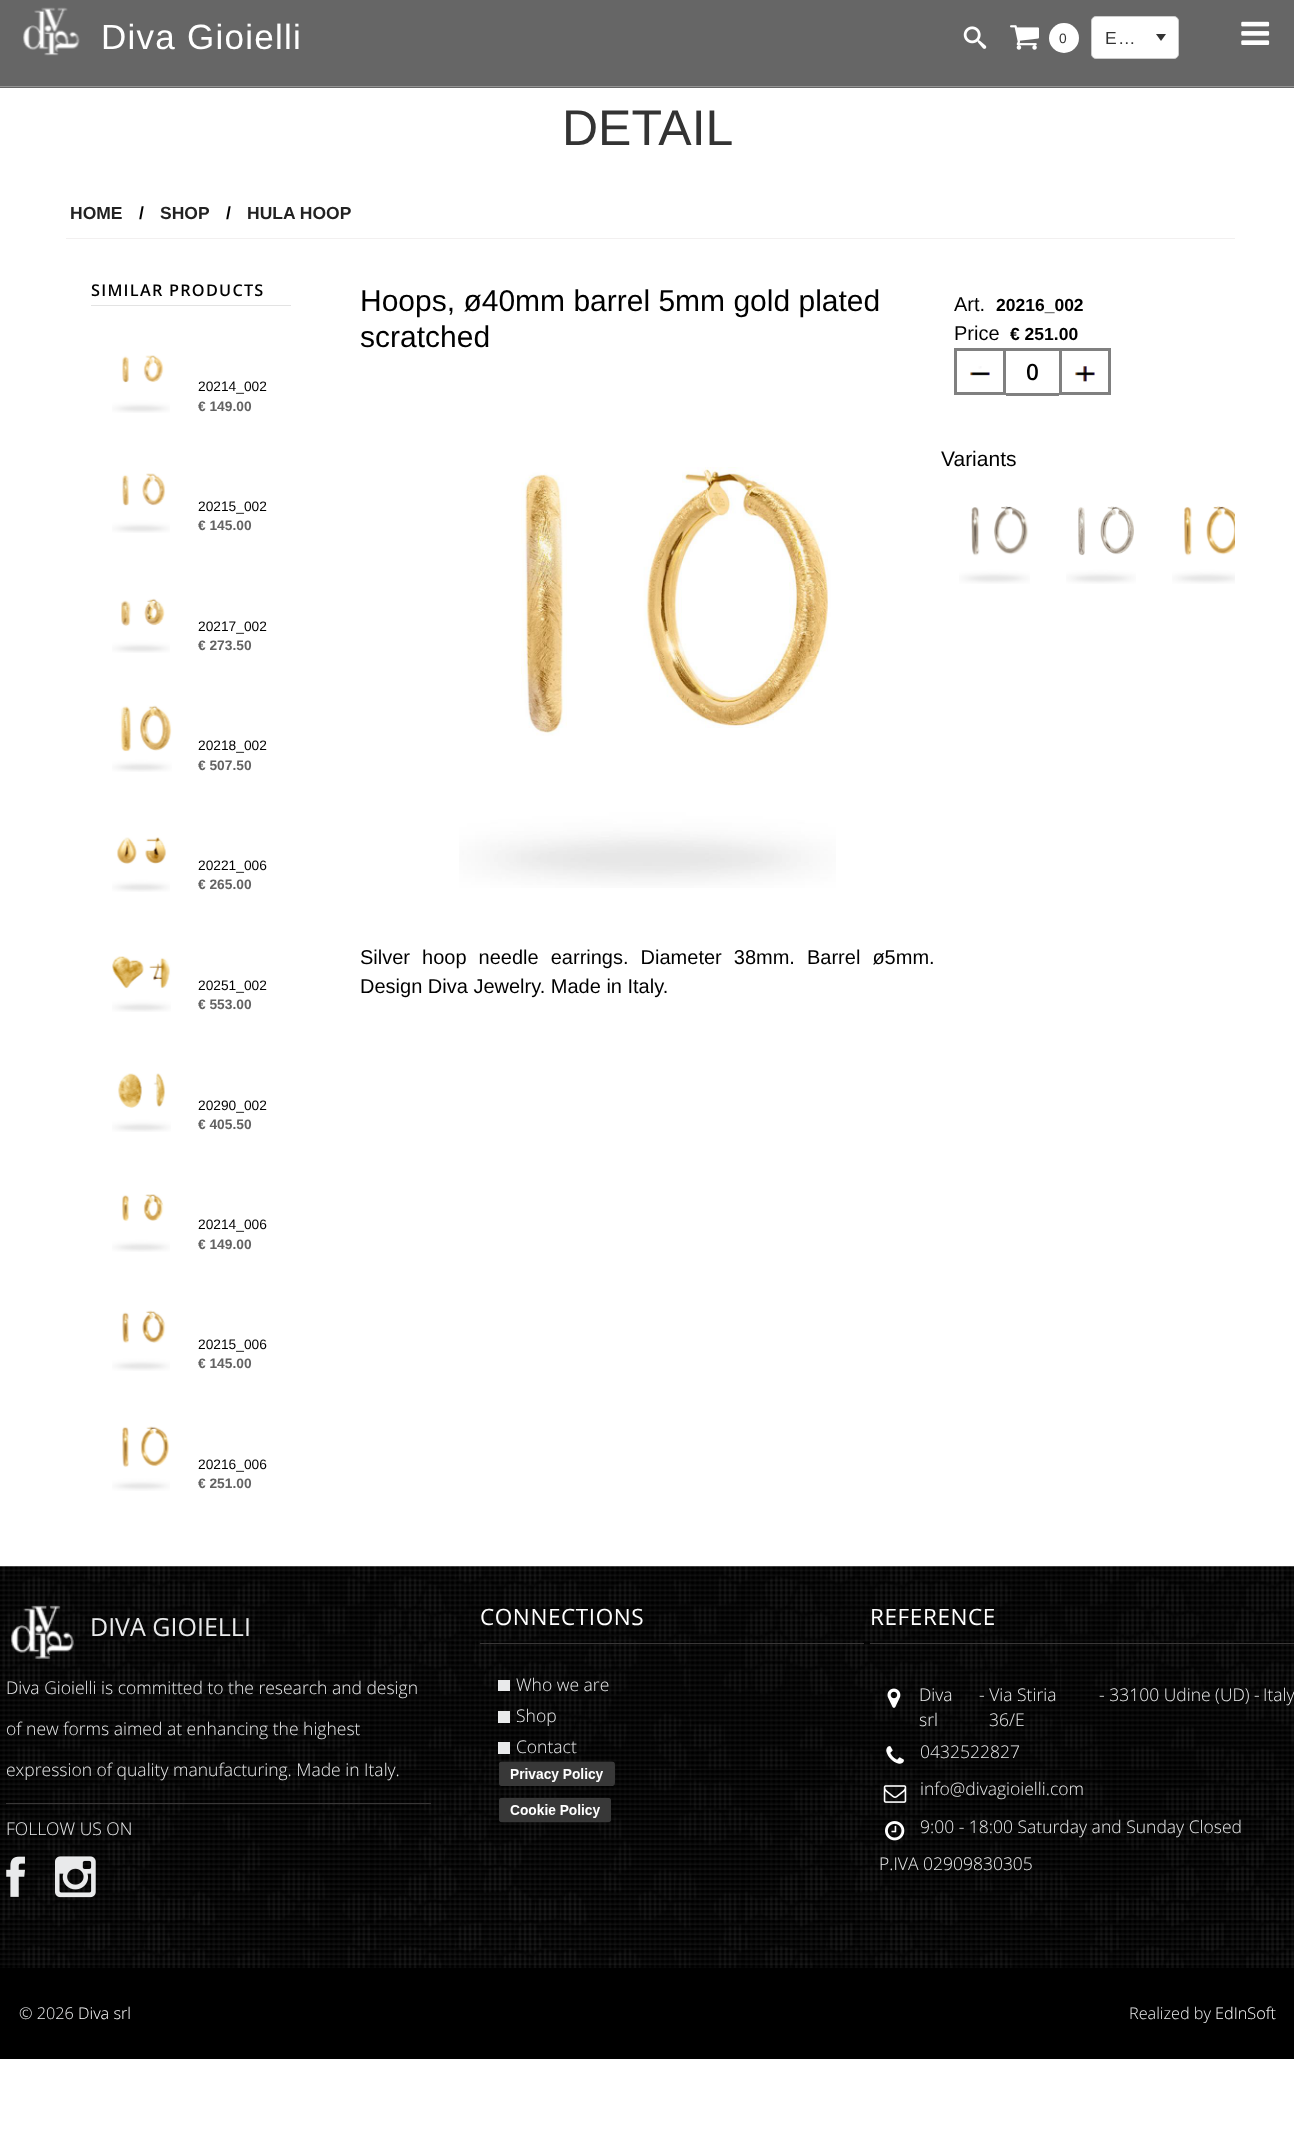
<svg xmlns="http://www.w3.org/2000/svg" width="1294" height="2132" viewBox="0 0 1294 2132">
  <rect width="100%" height="100%" fill="#ffffff"/>
  <rect x="0" y="0" width="1294" height="88" fill="#666666"/>
  <rect x="0" y="86" width="1294" height="1" fill="#949494"/>
  <image x="23" y="7" width="57" height="49" href="img1.png"/>
  <text x="101" y="49" font-family="Liberation Sans" font-size="35" letter-spacing="1.25" fill="#ffffff">Diva Gioielli</text>
  <image x="963" y="26" width="24" height="23" href="img2.png"/>
  <image x="1010" y="25" width="29" height="25" href="img3.png"/>
  <circle cx="1064" cy="38" r="15" fill="#ffffff"/>
  <text x="1059" y="43" font-family="Liberation Sans" font-size="13.75" letter-spacing="1.25" fill="#333333">0</text>
  <rect x="1091.5" y="16.5" width="87" height="42" rx="4.5" fill="#ffffff" stroke="#cccccc"/>
  <text x="1105" y="44" font-family="Liberation Sans" font-size="17.5" letter-spacing="1.25" fill="#333333">E…</text>
  <path d="M1161 41L1156 34H1166Z" fill="#333333"/>
  <image x="1241" y="21" width="29" height="24" href="img4.png"/>
  <text x="562" y="145" font-family="Liberation Sans" font-size="50" fill="#333333">DETAIL</text>
  <rect x="66" y="238" width="1169" height="1" fill="#f2f0f0"/>
  <text x="70" y="219" font-family="Liberation Sans" font-size="17.5" font-weight="bold" fill="#222222">HOME</text>
  <text x="139" y="219" font-family="Liberation Sans" font-size="17.5" font-weight="bold" fill="#000000">/</text>
  <text x="160" y="219" font-family="Liberation Sans" font-size="17.5" font-weight="bold" fill="#222222">SHOP</text>
  <text x="226" y="219" font-family="Liberation Sans" font-size="17.5" font-weight="bold" fill="#000000">/</text>
  <text x="247" y="219" font-family="Liberation Sans" font-size="17.5" font-weight="bold" fill="#222222">HULA HOOP</text>
  <rect x="91" y="305" width="200" height="1" fill="#e3e3e3"/>
  <text x="91" y="296" font-family="Open Sans" font-size="16.25" font-weight="600" letter-spacing="1.25" fill="#000000">SIMILAR PRODUCTS</text>
  <image x="112" y="355" width="58" height="58" href="img5.png"/>
  <text x="198" y="391" font-family="Liberation Sans" font-size="13.75" fill="#000000">20214_002</text>
  <text x="198" y="411" font-family="Liberation Sans" font-size="13.75" font-weight="bold" fill="#636363">€ 149.00</text>
  <image x="112" y="473" width="58" height="60" href="img6.png"/>
  <text x="198" y="511" font-family="Liberation Sans" font-size="13.75" fill="#000000">20215_002</text>
  <text x="198" y="530" font-family="Liberation Sans" font-size="13.75" font-weight="bold" fill="#636363">€ 145.00</text>
  <image x="112" y="598" width="58" height="55" href="img7.png"/>
  <text x="198" y="631" font-family="Liberation Sans" font-size="13.75" fill="#000000">20217_002</text>
  <text x="198" y="650" font-family="Liberation Sans" font-size="13.75" font-weight="bold" fill="#636363">€ 273.50</text>
  <image x="112" y="705" width="60" height="67" href="img8.png"/>
  <text x="198" y="750" font-family="Liberation Sans" font-size="13.75" fill="#000000">20218_002</text>
  <text x="198" y="770" font-family="Liberation Sans" font-size="13.75" font-weight="bold" fill="#636363">€ 507.50</text>
  <image x="112" y="837" width="58" height="55" href="img9.png"/>
  <text x="198" y="870" font-family="Liberation Sans" font-size="13.75" fill="#000000">20221_006</text>
  <text x="198" y="889" font-family="Liberation Sans" font-size="13.75" font-weight="bold" fill="#636363">€ 265.00</text>
  <image x="112" y="956" width="59" height="56" href="img10.png"/>
  <text x="198" y="990" font-family="Liberation Sans" font-size="13.75" fill="#000000">20251_002</text>
  <text x="198" y="1009" font-family="Liberation Sans" font-size="13.75" font-weight="bold" fill="#636363">€ 553.00</text>
  <image x="112" y="1073" width="59" height="59" href="img11.png"/>
  <text x="198" y="1110" font-family="Liberation Sans" font-size="13.75" fill="#000000">20290_002</text>
  <text x="198" y="1129" font-family="Liberation Sans" font-size="13.75" font-weight="bold" fill="#636363">€ 405.50</text>
  <image x="112" y="1194" width="58" height="58" href="img12.png"/>
  <text x="198" y="1229" font-family="Liberation Sans" font-size="13.75" fill="#000000">20214_006</text>
  <text x="198" y="1249" font-family="Liberation Sans" font-size="13.75" font-weight="bold" fill="#636363">€ 149.00</text>
  <image x="112" y="1310" width="58" height="61" href="img13.png"/>
  <text x="198" y="1349" font-family="Liberation Sans" font-size="13.75" fill="#000000">20215_006</text>
  <text x="198" y="1368" font-family="Liberation Sans" font-size="13.75" font-weight="bold" fill="#636363">€ 145.00</text>
  <image x="112" y="1426" width="58" height="65" href="img14.png"/>
  <text x="198" y="1469" font-family="Liberation Sans" font-size="13.75" fill="#000000">20216_006</text>
  <text x="198" y="1488" font-family="Liberation Sans" font-size="13.75" font-weight="bold" fill="#636363">€ 251.00</text>
  <text x="360" y="311" font-family="Liberation Sans" font-size="30" fill="#000000">Hoops, ø40mm barrel 5mm gold plated</text>
  <text x="360" y="347" font-family="Liberation Sans" font-size="30" fill="#000000">scratched</text>
  <image x="459" y="467" width="377" height="421" href="img15.png"/>
  <text x="360" y="964" word-spacing="6.5" font-family="Liberation Sans" font-size="20" fill="#000000">Silver hoop needle earrings. Diameter 38mm. Barrel ø5mm.</text>
  <text x="360" y="993" font-family="Liberation Sans" font-size="20" fill="#000000">Design Diva Jewelry. Made in Italy.</text>
  <text x="954" y="311" font-family="Liberation Sans" font-size="20" fill="#000000">Art.</text>
  <text x="996" y="311" font-family="Liberation Sans" font-size="17.5" font-weight="bold" fill="#000000">20216_002</text>
  <text x="954" y="340" font-family="Liberation Sans" font-size="20" fill="#000000">Price</text>
  <text x="1010" y="340" font-family="Liberation Sans" font-size="17.5" font-weight="bold" fill="#000000">€ 251.00</text>
  <rect x="955.5" y="349.5" width="49" height="44" fill="none" stroke="#808080" stroke-width="3"/>
  <image x="970" y="366" width="20" height="10" href="img16.png"/>
  <rect x="1006" y="348" width="53" height="3" fill="#808080"/>
  <rect x="1006" y="393" width="53" height="3" fill="#808080"/>
  <text x="1026" y="380" font-family="Open Sans" font-size="22.5" font-weight="600" fill="#000000">0</text>
  <rect x="1060.5" y="349.5" width="49" height="44" fill="none" stroke="#808080" stroke-width="3"/>
  <image x="1075" y="366" width="20" height="16" href="img17.png"/>
  <text x="941" y="466" font-family="Liberation Sans" font-size="21" fill="#000000">Variants</text>
  <image x="959" y="506" width="71" height="78" href="img18.png"/>
  <image x="1066" y="506" width="70" height="78" href="img19.png"/>
  <image x="1172" y="506" width="63" height="78" href="img20.png"/>
  <image x="0" y="1566" width="1294" height="402" href="img21.png"/>
  <image x="11" y="1605" width="63" height="54" href="img22.png"/>
  <text x="90" y="1636" font-family="Open Sans" font-size="25" fill="#e9eaeb">DIVA GIOIELLI</text>
  <rect x="6" y="1803" width="425" height="1" fill="#393737"/>
  <text x="6" y="1694" font-family="Open Sans" font-size="17.5" font-weight="300" fill="#e9eaeb">Diva Gioielli is committed to the research and design</text>
  <text x="6" y="1735" font-family="Open Sans" font-size="17.5" font-weight="300" fill="#e9eaeb">of new forms aimed at enhancing the highest</text>
  <text x="6" y="1776" font-family="Open Sans" font-size="17.5" font-weight="300" fill="#e9eaeb">expression of quality manufacturing. Made in Italy.</text>
  <text x="6" y="1835" font-family="Open Sans" font-size="17.5" font-weight="300" fill="#e9eaeb">FOLLOW US ON</text>
  <image x="6" y="1856" width="19" height="41" href="img23.png"/>
  <image x="55" y="1856" width="41" height="42" href="img24.png"/>
  <rect x="480" y="1643" width="384" height="1" fill="#393737"/>
  <text x="480" y="1625" font-family="Open Sans" font-size="22.5" letter-spacing="0.6" fill="#ffffff">CONNECTIONS</text>
  <rect x="498" y="1680" width="12" height="11" fill="#e9eaeb"/>
  <text x="516" y="1691" font-family="Open Sans" font-size="17.5" font-weight="300" fill="#e9eaeb">Who we are</text>
  <rect x="498" y="1711" width="12" height="12" fill="#e9eaeb"/>
  <text x="516" y="1722" font-family="Open Sans" font-size="17.5" font-weight="300" fill="#e9eaeb">Shop</text>
  <rect x="498" y="1742" width="12" height="12" fill="#e9eaeb"/>
  <text x="516" y="1753" font-family="Open Sans" font-size="17.5" font-weight="300" fill="#e9eaeb">Contact</text>
  <image x="499" y="1761" width="116" height="25" href="img25.png"/>
  <image x="499" y="1797" width="112" height="26" href="img26.png"/>
  <rect x="870" y="1643" width="424" height="1" fill="#393737"/>
  <text x="870" y="1625" font-family="Open Sans" font-size="22.5" letter-spacing="0.6" fill="#ffffff">REFERENCE</text>
  <image x="887" y="1688" width="14" height="20" href="img27.png"/>
  <text x="919" y="1701" font-family="Open Sans" font-size="17.5" font-weight="300" fill="#e9eaeb">Diva</text>
  <text x="919" y="1726" font-family="Open Sans" font-size="17.5" font-weight="300" fill="#e9eaeb">srl</text>
  <text x="979" y="1701" font-family="Open Sans" font-size="17.5" font-weight="300" fill="#e9eaeb">- Via Stiria</text>
  <text x="1099" y="1701" font-family="Open Sans" font-size="17.5" font-weight="300" fill="#e9eaeb">- 33100 Udine (UD) -</text>
  <text x="1263" y="1701" font-family="Open Sans" font-size="17.5" font-weight="300" fill="#e9eaeb">Italy</text>
  <text x="989" y="1726" font-family="Open Sans" font-size="17.5" font-weight="300" fill="#e9eaeb">36/E</text>
  <image x="886" y="1746" width="18" height="18" href="img28.png"/>
  <text x="920" y="1758" font-family="Open Sans" font-size="17.5" font-weight="300" fill="#e9eaeb">0432522827</text>
  <image x="883" y="1785" width="24" height="18" href="img29.png"/>
  <text x="920" y="1795" font-family="Open Sans" font-size="17.5" font-weight="300" fill="#e9eaeb">info@divagioielli.com</text>
  <image x="885" y="1821" width="20" height="20" href="img30.png"/>
  <text x="920" y="1833" font-family="Open Sans" font-size="17.5" font-weight="300" fill="#e9eaeb">9:00 - 18:00 Saturday and Sunday Closed</text>
  <text x="879" y="1870" font-family="Open Sans" font-size="17.5" font-weight="300" fill="#e9eaeb">P.IVA 02909830305</text>
  <rect x="0" y="1968" width="1294" height="91" fill="#000000"/>
  <text x="19" y="2019" font-family="Open Sans" font-size="16.25" font-weight="300" fill="#e9eaeb">© 2026</text>
  <text x="78" y="2019" font-family="Open Sans" font-size="16.25" font-weight="300" fill="#ffffff">Diva srl</text>
  <text x="1129" y="2019" font-family="Open Sans" font-size="16.25" font-weight="300" fill="#e9eaeb">Realized by</text>
  <text x="1215" y="2019" font-family="Open Sans" font-size="16.25" font-weight="300" fill="#ffffff">EdInSoft</text>
</svg>
